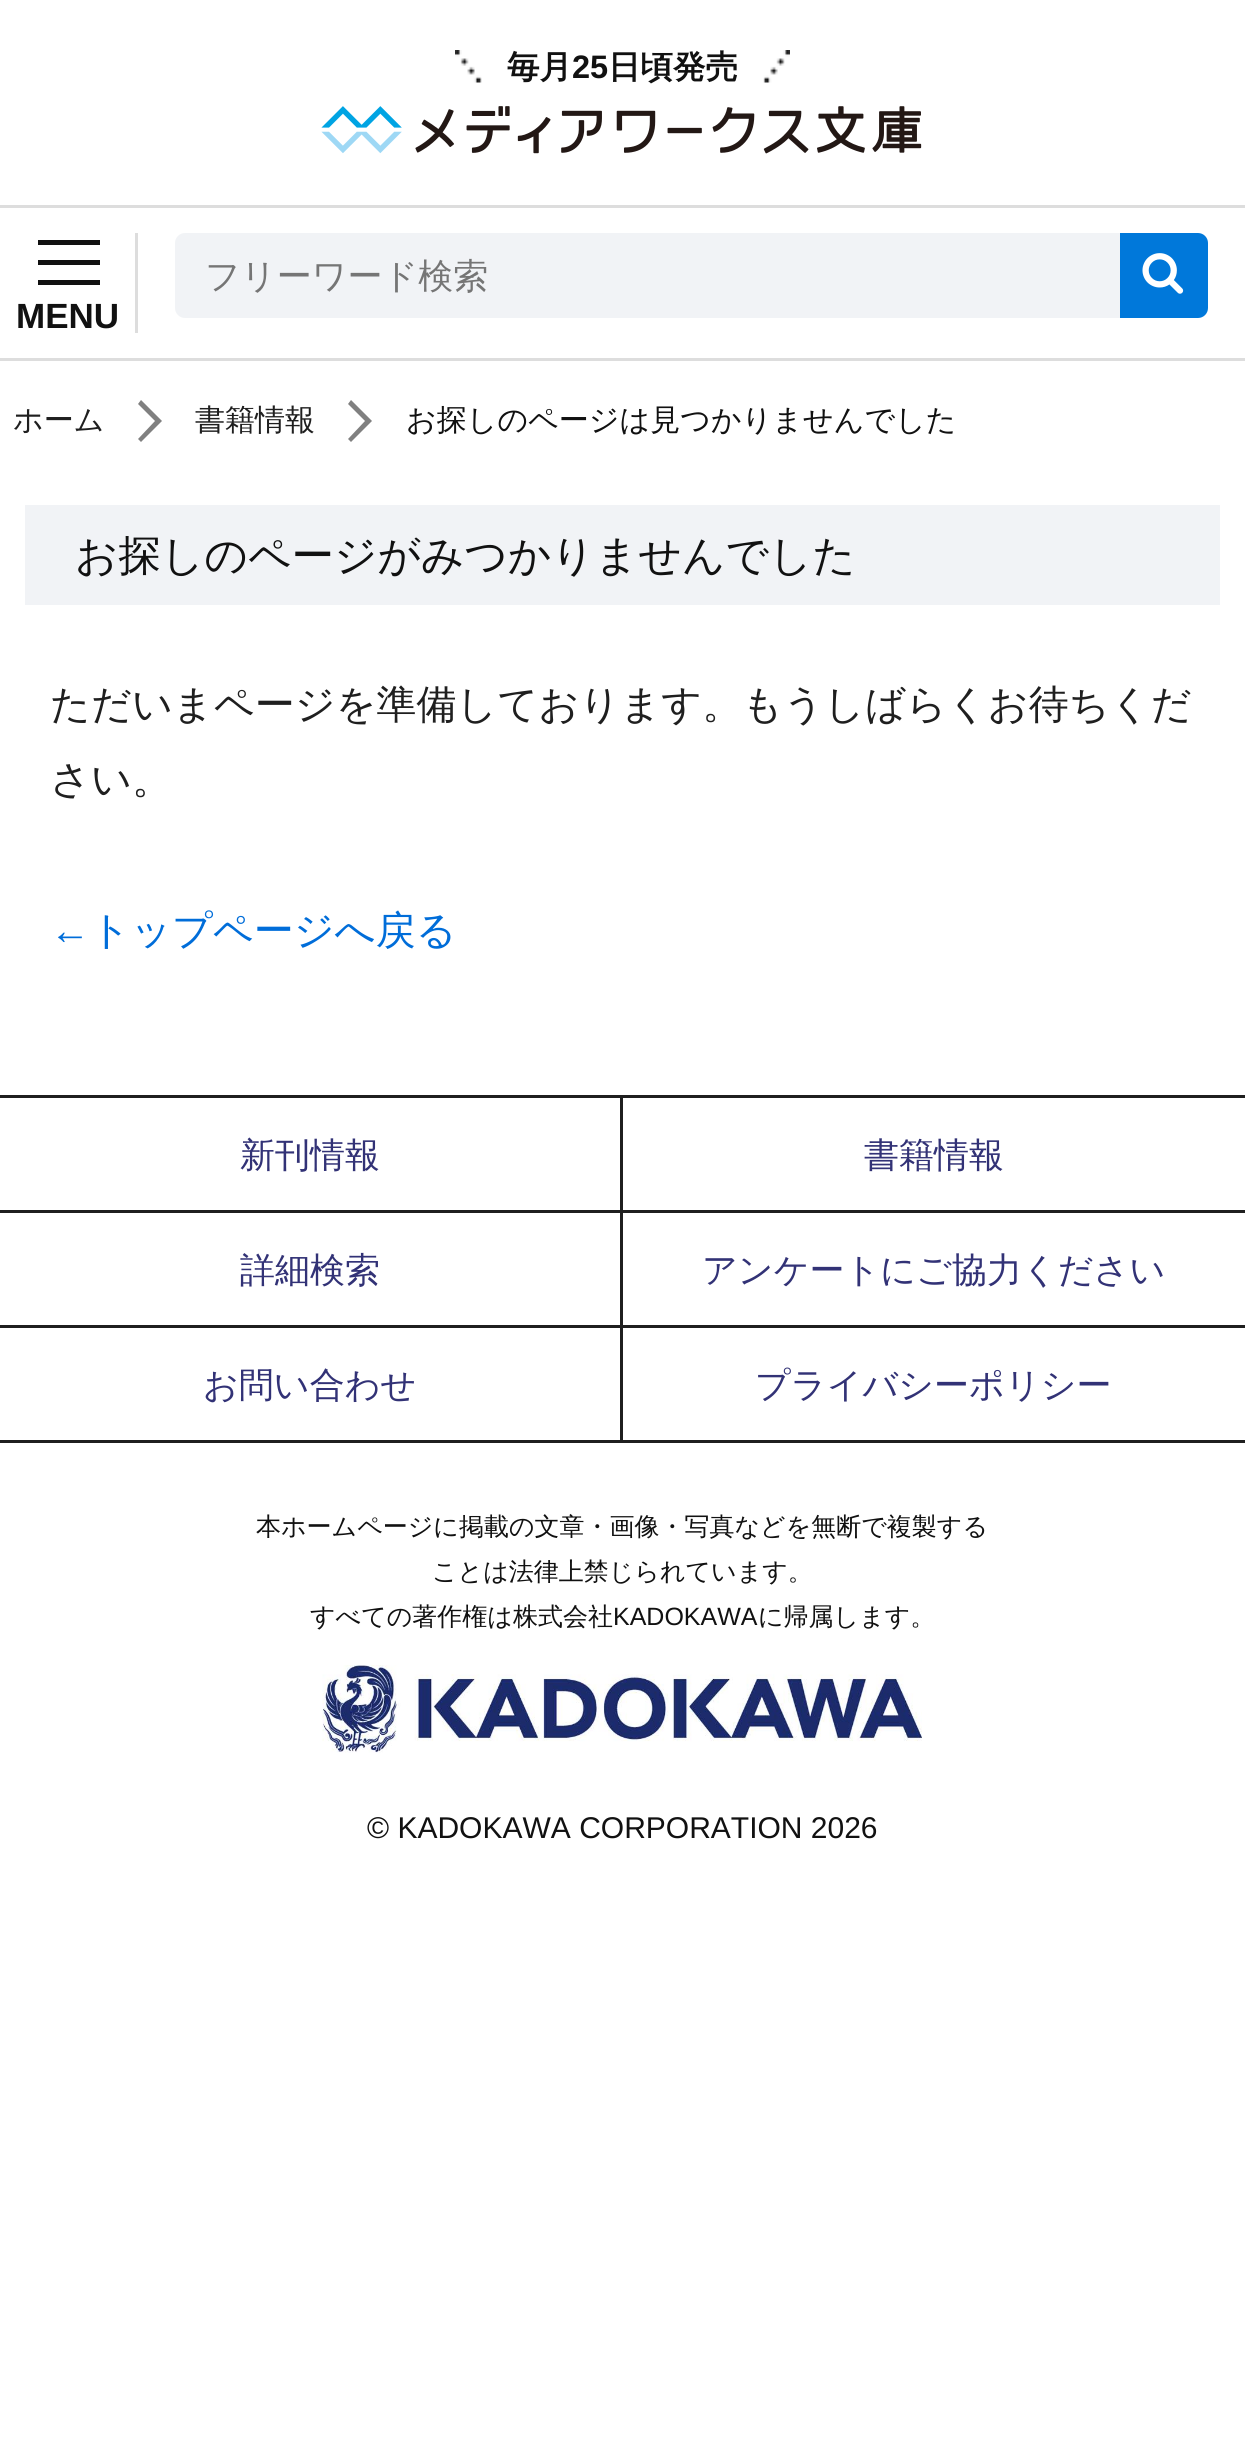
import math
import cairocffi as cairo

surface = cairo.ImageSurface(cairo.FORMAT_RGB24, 1245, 2442)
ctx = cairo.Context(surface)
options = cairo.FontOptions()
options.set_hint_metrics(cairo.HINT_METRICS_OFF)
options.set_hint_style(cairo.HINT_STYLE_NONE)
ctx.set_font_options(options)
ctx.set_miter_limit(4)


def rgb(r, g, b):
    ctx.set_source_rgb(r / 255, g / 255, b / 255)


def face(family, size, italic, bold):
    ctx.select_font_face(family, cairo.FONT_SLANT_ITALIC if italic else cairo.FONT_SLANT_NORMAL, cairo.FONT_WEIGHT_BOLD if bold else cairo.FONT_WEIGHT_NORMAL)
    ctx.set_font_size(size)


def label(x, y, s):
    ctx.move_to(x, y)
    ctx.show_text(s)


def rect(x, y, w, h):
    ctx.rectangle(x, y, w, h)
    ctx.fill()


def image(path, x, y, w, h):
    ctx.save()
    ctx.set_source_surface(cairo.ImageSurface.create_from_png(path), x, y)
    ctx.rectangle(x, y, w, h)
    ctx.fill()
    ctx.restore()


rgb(255, 255, 255)
ctx.paint()
rgb(221, 221, 221)
rect(0, 205, 1245, 3)
image('image0.png', 455, 50, 335, 33)
face('WenQuanYi Zen Hei', 32.5, 0, 1)
rgb(17, 17, 17)
label(507, 78, '毎月')
face('Liberation Sans', 32.5, 0, 1)
label(572, 78, '25')
face('WenQuanYi Zen Hei', 32.5, 0, 1)
label(608, 78, '日頃発売')
image('image1.png', 321, 106, 601, 48)
rgb(221, 221, 221)
rect(0, 358, 1245, 3)
rgb(241, 243, 246)
ctx.new_path()
ctx.move_to(185, 233)
ctx.line_to(1120, 233)
ctx.line_to(1120, 318)
ctx.line_to(185, 318)
ctx.curve_to(179.5, 318, 175, 313.5, 175, 308)
ctx.line_to(175, 243)
ctx.curve_to(175, 237.5, 179.5, 233, 185, 233)
ctx.close_path()
ctx.fill()
face('WenQuanYi Zen Hei Medium', 35, 0, 0)
rgb(117, 117, 117)
label(205, 288, 'フリーワード検索')
rgb(0, 120, 218)
ctx.new_path()
ctx.move_to(1120, 233)
ctx.line_to(1198, 233)
ctx.curve_to(1203.5, 233, 1208, 237.5, 1208, 243)
ctx.line_to(1208, 308)
ctx.curve_to(1208, 313.5, 1203.5, 318, 1198, 318)
ctx.line_to(1120, 318)
ctx.close_path()
ctx.fill()
image('image2.png', 1142, 253, 42, 41)
rgb(221, 221, 221)
rect(135, 233, 3, 100)
rgb(17, 17, 17)
rect(38, 240, 62, 5)
rect(38, 260, 62, 5)
rect(38, 280, 62, 5)
face('Liberation Sans', 35, 0, 1)
label(16, 328, 'MENU')
face('WenQuanYi Zen Hei Medium', 30, 0, 0)
rgb(31, 31, 31)
label(13, 430, 'ホーム')
rgb(128, 128, 128)
ctx.set_fill_rule(cairo.FILL_RULE_EVEN_ODD)
ctx.new_path()
ctx.move_to(138, 404)
ctx.line_to(141, 400)
ctx.line_to(162, 421)
ctx.line_to(141, 442)
ctx.line_to(138, 439)
ctx.line_to(155, 421)
ctx.close_path()
ctx.fill()
rgb(31, 31, 31)
label(195, 430, '書籍情報')
rgb(128, 128, 128)
ctx.new_path()
ctx.move_to(348, 404)
ctx.line_to(351, 400)
ctx.line_to(372, 421)
ctx.line_to(351, 442)
ctx.line_to(348, 439)
ctx.line_to(365, 421)
ctx.close_path()
ctx.fill()
rgb(17, 17, 17)
label(406, 430, 'お探しのページは見つかりませんでした')
rgb(241, 243, 246)
rect(25, 505, 1195, 100)
face('WenQuanYi Zen Hei Medium', 42.5, 0, 0)
rgb(17, 17, 17)
label(75, 570, 'お探しのページがみつかりませんでした')
face('WenQuanYi Zen Hei Medium', 40, 0, 0)
rgb(31, 31, 31)
label(50, 718, 'ただいまページを準備しております。もうしばらくお待ちくだ')
label(50, 793, 'さい。')
face('Liberation Sans', 40, 0, 0)
rgb(0, 109, 217)
label(50, 944, '←')
face('WenQuanYi Zen Hei Medium', 40, 0, 0)
label(90, 944, 'トップページへ戻る')
rgb(31, 31, 31)
rect(0, 1095, 1245, 3)
rect(620, 1098, 3, 345)
rect(0, 1210, 1245, 3)
face('WenQuanYi Zen Hei Medium', 35, 0, 0)
rgb(50, 50, 118)
label(240, 1167, '新刊情報')
label(864, 1167, '書籍情報')
rgb(31, 31, 31)
rect(0, 1325, 1245, 3)
rgb(50, 50, 118)
label(240, 1282, '詳細検索')
label(702, 1282, 'アンケートにご協力ください')
rgb(31, 31, 31)
rect(0, 1440, 1245, 3)
rgb(50, 50, 118)
label(203, 1397, 'お問い合わせ')
label(755, 1397, 'プライバシーポリシー')
face('WenQuanYi Zen Hei Medium', 25, 0, 0)
rgb(17, 17, 17)
label(256, 1535, '本ホームページに掲載の文章・画像・写真などを無断で複製する')
label(432, 1580, 'ことは法律上禁じられています。')
label(310, 1625, 'すべての著作権は株式会社')
face('Liberation Sans', 25, 0, 0)
label(613, 1625, 'KADOKAWA')
face('WenQuanYi Zen Hei Medium', 25, 0, 0)
label(758, 1625, 'に帰属します。')
image('image3.png', 322, 1665, 600, 88)
face('Liberation Sans', 30, 0, 0)
label(367, 1838, '© KADOKAWA CORPORATION 2026')
surface.write_to_png('render.png')
